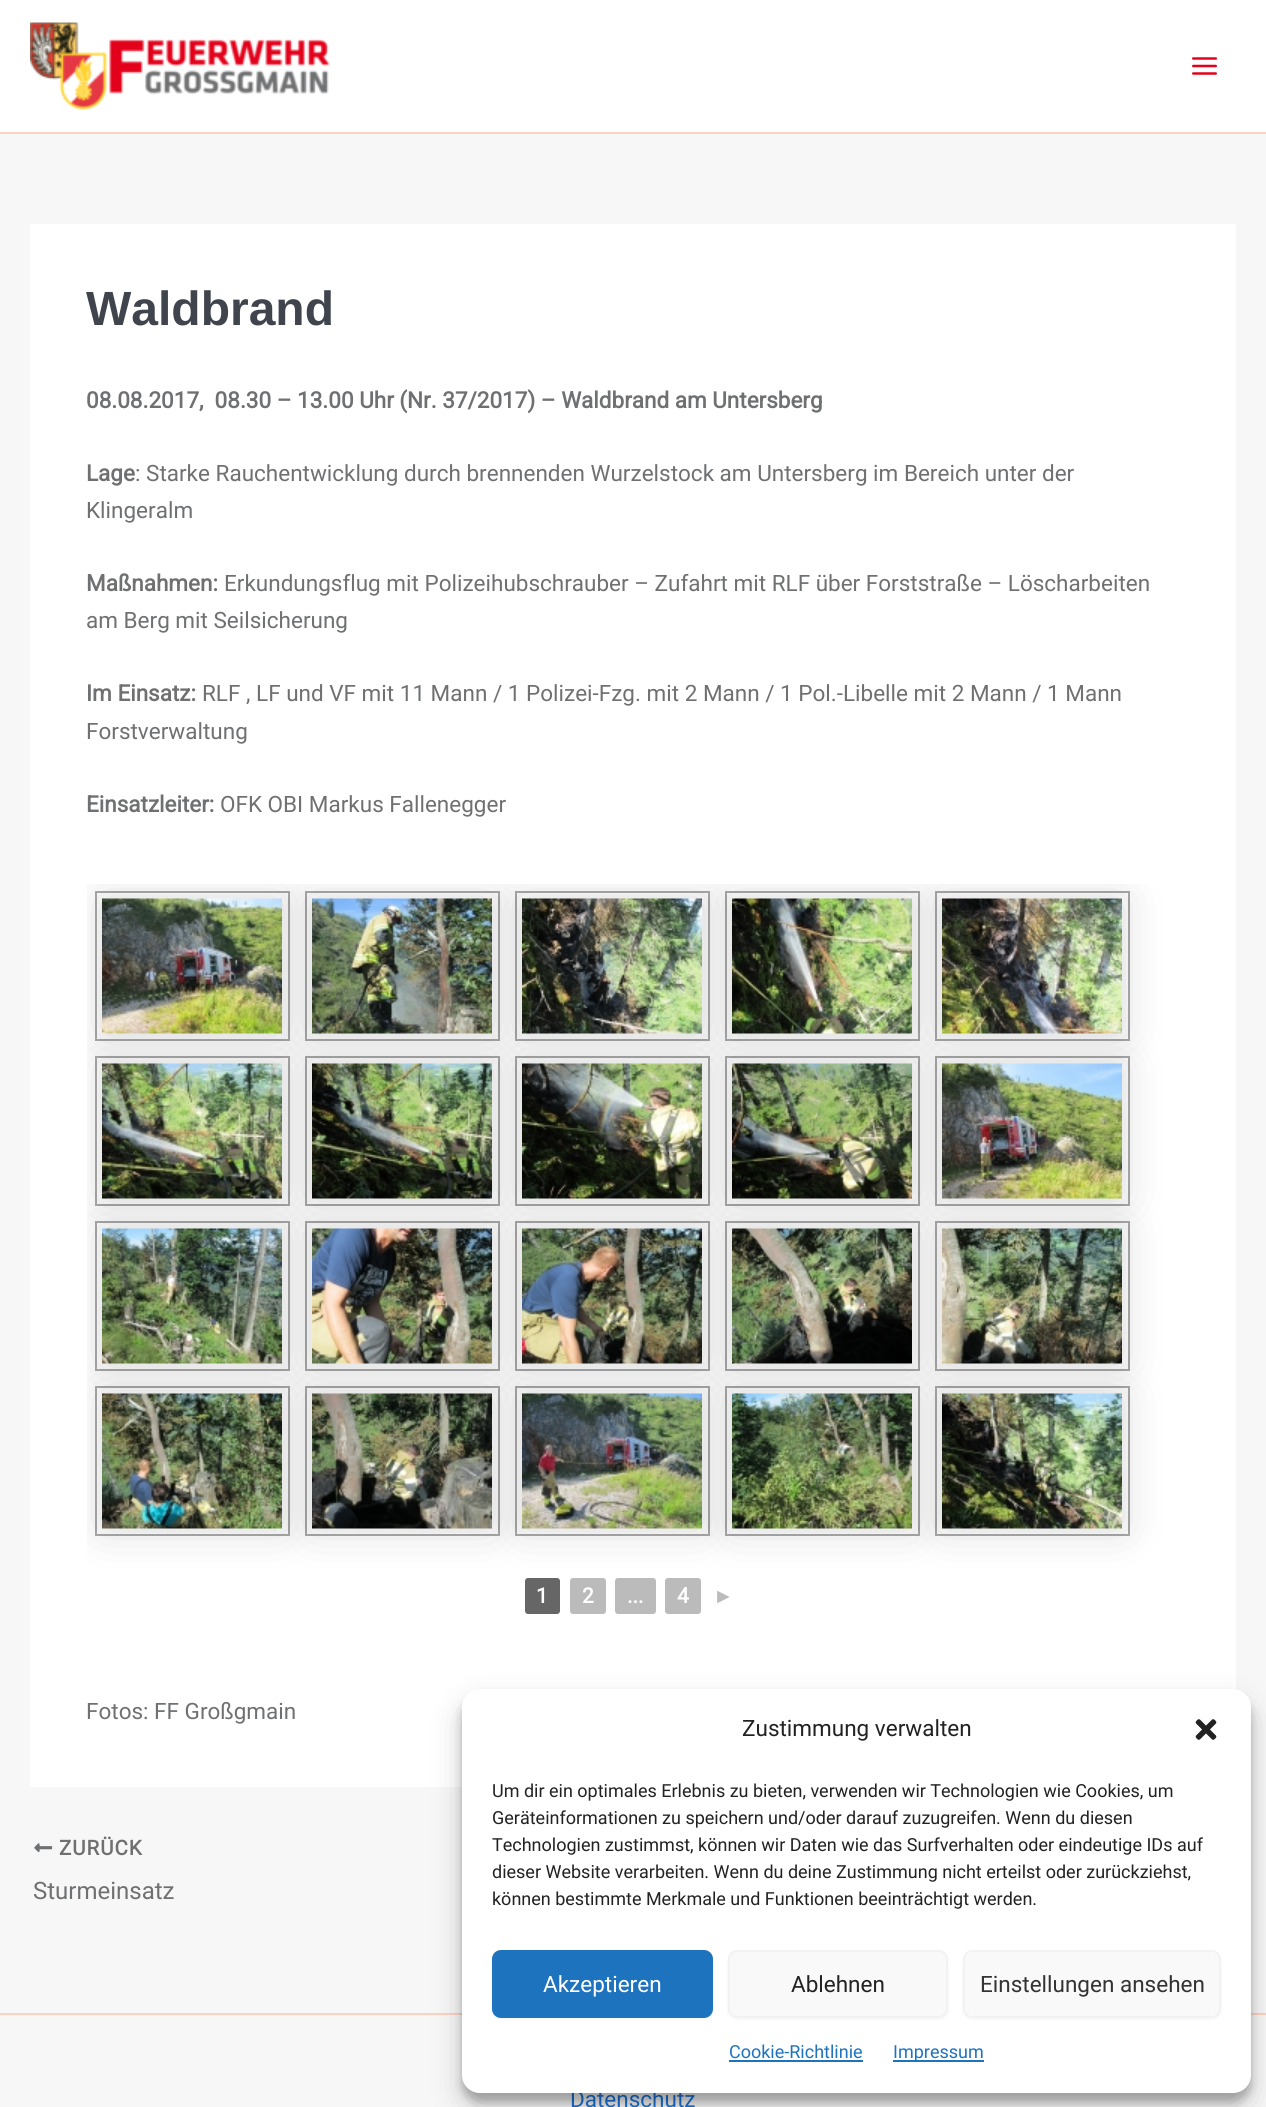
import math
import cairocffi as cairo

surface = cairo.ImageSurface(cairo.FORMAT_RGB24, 1266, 2107)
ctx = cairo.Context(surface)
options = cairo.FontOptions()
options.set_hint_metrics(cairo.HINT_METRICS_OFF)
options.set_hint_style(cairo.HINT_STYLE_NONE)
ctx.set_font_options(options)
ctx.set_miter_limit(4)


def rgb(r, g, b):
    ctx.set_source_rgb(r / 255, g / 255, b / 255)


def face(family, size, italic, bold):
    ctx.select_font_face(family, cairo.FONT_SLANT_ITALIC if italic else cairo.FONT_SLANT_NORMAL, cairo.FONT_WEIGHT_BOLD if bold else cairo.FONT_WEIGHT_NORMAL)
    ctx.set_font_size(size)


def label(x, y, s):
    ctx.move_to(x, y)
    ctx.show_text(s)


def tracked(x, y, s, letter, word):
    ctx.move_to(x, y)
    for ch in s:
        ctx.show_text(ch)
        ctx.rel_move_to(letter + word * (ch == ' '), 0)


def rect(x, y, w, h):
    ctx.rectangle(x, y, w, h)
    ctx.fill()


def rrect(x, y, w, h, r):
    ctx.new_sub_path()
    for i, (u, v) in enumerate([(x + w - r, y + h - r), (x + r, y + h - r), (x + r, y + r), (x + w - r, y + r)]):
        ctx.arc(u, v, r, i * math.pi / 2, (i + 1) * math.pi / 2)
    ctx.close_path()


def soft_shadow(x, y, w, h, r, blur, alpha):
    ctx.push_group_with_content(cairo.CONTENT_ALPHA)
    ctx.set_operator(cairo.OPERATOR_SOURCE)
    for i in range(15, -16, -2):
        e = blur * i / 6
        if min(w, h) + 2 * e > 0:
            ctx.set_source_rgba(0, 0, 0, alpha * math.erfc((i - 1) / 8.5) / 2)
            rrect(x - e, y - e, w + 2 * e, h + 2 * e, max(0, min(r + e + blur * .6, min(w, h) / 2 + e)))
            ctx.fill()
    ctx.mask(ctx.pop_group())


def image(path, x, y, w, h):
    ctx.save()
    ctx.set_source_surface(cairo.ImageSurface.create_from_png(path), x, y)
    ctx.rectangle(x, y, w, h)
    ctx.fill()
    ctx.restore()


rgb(247, 247, 247)
ctx.paint()
rgb(255, 255, 255)
rect(0, 0, 1266, 132)
rgb(255, 209, 191)
rect(0, 132, 1266, 2)
image('image0.png', 30, 22, 300, 88)
image('image1.png', 1192, 57, 25, 18)
rgb(255, 255, 255)
rect(30, 224, 1206, 1563)
face('Liberation Sans', 48, 0, 1)
rgb(64, 68, 77)
label(86, 325, 'Waldbrand')
face('Roboto', 22.5, 0, 1)
rgb(111, 112, 114)
label(86, 408, '08.08.2017,  08.30 – 13.00 Uhr (Nr. 37/2017) – Waldbrand am Untersberg')
label(86, 481, 'Lage')
face('Roboto', 22.5, 0, 0)
label(135, 481, ': Starke Rauchentwicklung durch brennenden Wurzelstock am Untersberg im Bereich unter der')
label(86, 518, 'Klingeralm')
face('Roboto', 22.5, 0, 1)
label(86, 591, 'Maßnahmen:')
face('Roboto', 22.5, 0, 0)
label(224, 591, 'Erkundungsflug mit Polizeihubschrauber – Zufahrt mit RLF über Forststraße – Löscharbeiten')
label(86, 628, 'am Berg mit Seilsicherung')
face('Roboto', 22.5, 0, 1)
label(86, 701, 'Im Einsatz:')
face('Roboto', 22.5, 0, 0)
label(202, 701, 'RLF , LF und VF mit 11 Mann / 1 Polizei-Fzg. mit 2 Mann / 1 Pol.-Libelle mit 2 Mann / 1 Mann')
label(86, 739, 'Forstverwaltung')
face('Roboto', 22.5, 0, 1)
label(86, 812, 'Einsatzleiter:')
face('Roboto', 22.5, 0, 0)
label(220, 812, 'OFK OBI Markus Fallenegger')
ctx.rectangle(96, 892, 193, 148)
rgb(169, 169, 169)
ctx.stroke()
ctx.rectangle(306, 892, 193, 148)
ctx.stroke()
ctx.rectangle(96, 1057, 193, 148)
ctx.stroke()
ctx.rectangle(306, 1057, 193, 148)
ctx.stroke()
ctx.save()
ctx.rectangle(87, 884, 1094, 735)
ctx.clip()
rgb(0, 0, 0)
soft_shadow(102, 899, 180, 135, 0, 22.5, 0.15)
ctx.restore()
image('image2.png', 102, 898, 180, 136)
ctx.rectangle(516, 892, 193, 148)
ctx.stroke()
ctx.rectangle(516, 1057, 193, 148)
ctx.stroke()
ctx.save()
ctx.rectangle(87, 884, 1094, 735)
ctx.clip()
rgb(0, 0, 0)
soft_shadow(312, 899, 180, 135, 0, 22.5, 0.15)
ctx.restore()
image('image3.png', 312, 898, 180, 136)
ctx.rectangle(726, 892, 193, 148)
ctx.stroke()
ctx.rectangle(726, 1057, 193, 148)
ctx.stroke()
ctx.save()
ctx.rectangle(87, 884, 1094, 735)
ctx.clip()
rgb(0, 0, 0)
soft_shadow(522, 899, 180, 135, 0, 22.5, 0.15)
ctx.restore()
image('image4.png', 522, 898, 180, 136)
ctx.rectangle(936, 892, 193, 148)
ctx.stroke()
ctx.rectangle(936, 1057, 193, 148)
ctx.stroke()
ctx.save()
ctx.rectangle(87, 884, 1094, 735)
ctx.clip()
rgb(0, 0, 0)
soft_shadow(732, 899, 180, 135, 0, 22.5, 0.15)
ctx.restore()
image('image5.png', 732, 898, 180, 136)
ctx.save()
ctx.rectangle(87, 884, 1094, 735)
ctx.clip()
rgb(0, 0, 0)
soft_shadow(942, 899, 180, 135, 0, 22.5, 0.15)
ctx.restore()
image('image6.png', 942, 898, 180, 136)
ctx.rectangle(96, 1222, 193, 148)
ctx.stroke()
ctx.rectangle(306, 1222, 193, 148)
ctx.stroke()
ctx.save()
ctx.rectangle(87, 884, 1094, 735)
ctx.clip()
rgb(0, 0, 0)
soft_shadow(102, 1064, 180, 135, 0, 22.5, 0.15)
ctx.restore()
image('image7.png', 102, 1063, 180, 136)
ctx.rectangle(516, 1222, 193, 148)
ctx.stroke()
rgb(0, 0, 0)
soft_shadow(312, 1064, 180, 135, 0, 22.5, 0.15)
image('image8.png', 312, 1063, 180, 136)
ctx.rectangle(726, 1222, 193, 148)
rgb(169, 169, 169)
ctx.stroke()
rgb(0, 0, 0)
soft_shadow(522, 1064, 180, 135, 0, 22.5, 0.15)
image('image9.png', 522, 1063, 180, 136)
ctx.rectangle(936, 1222, 193, 148)
rgb(169, 169, 169)
ctx.stroke()
rgb(0, 0, 0)
soft_shadow(732, 1064, 180, 135, 0, 22.5, 0.15)
image('image10.png', 732, 1063, 180, 136)
soft_shadow(942, 1064, 180, 135, 0, 22.5, 0.15)
image('image11.png', 942, 1063, 180, 136)
ctx.rectangle(96, 1387, 193, 148)
rgb(169, 169, 169)
ctx.stroke()
ctx.rectangle(306, 1387, 193, 148)
ctx.stroke()
ctx.save()
ctx.rectangle(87, 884, 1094, 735)
ctx.clip()
rgb(0, 0, 0)
soft_shadow(102, 1229, 180, 135, 0, 22.5, 0.15)
ctx.restore()
image('image12.png', 102, 1228, 180, 136)
ctx.rectangle(516, 1387, 193, 148)
ctx.stroke()
rgb(0, 0, 0)
soft_shadow(312, 1229, 180, 135, 0, 22.5, 0.15)
image('image13.png', 312, 1228, 180, 136)
ctx.rectangle(726, 1387, 193, 148)
rgb(169, 169, 169)
ctx.stroke()
rgb(0, 0, 0)
soft_shadow(522, 1229, 180, 135, 0, 22.5, 0.15)
image('image14.png', 522, 1228, 180, 136)
ctx.rectangle(936, 1387, 193, 148)
rgb(169, 169, 169)
ctx.stroke()
rgb(0, 0, 0)
soft_shadow(732, 1229, 180, 135, 0, 22.5, 0.15)
image('image15.png', 732, 1228, 180, 136)
soft_shadow(942, 1229, 180, 135, 0, 22.5, 0.15)
image('image16.png', 942, 1228, 180, 136)
ctx.save()
ctx.rectangle(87, 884, 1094, 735)
ctx.clip()
soft_shadow(102, 1394, 180, 135, 0, 22.5, 0.15)
ctx.restore()
image('image17.png', 102, 1393, 180, 136)
rgb(102, 102, 102)
rrect(525, 1578, 35, 36, 3)
ctx.fill()
rgb(0, 0, 0)
soft_shadow(312, 1394, 180, 135, 0, 22.5, 0.15)
image('image18.png', 312, 1393, 180, 136)
rgb(187, 187, 187)
rrect(570, 1578, 36, 36, 3)
ctx.fill()
rrect(615, 1578, 41, 36, 3)
ctx.fill()
rrect(665, 1578, 36, 36, 3)
ctx.fill()
rgb(0, 0, 0)
soft_shadow(522, 1394, 180, 135, 0, 22.5, 0.15)
image('image19.png', 522, 1393, 180, 136)
soft_shadow(732, 1394, 180, 135, 0, 22.5, 0.15)
image('image20.png', 732, 1393, 180, 136)
soft_shadow(942, 1394, 180, 135, 0, 22.5, 0.15)
image('image21.png', 942, 1393, 180, 136)
face('Roboto', 21, 0, 1)
rgb(255, 255, 255)
label(536, 1603, '1')
label(582, 1603, '2')
label(627, 1603, '...')
label(677, 1603, '4')
face('Liberation Sans', 21, 0, 1)
rgb(187, 187, 187)
label(713, 1603, '►')
face('Roboto', 22.5, 0, 0)
rgb(111, 112, 114)
label(86, 1719, 'Fotos: FF Großgmain')
image('image22.png', 34, 1843, 19, 9)
face('Roboto', 20.5, 0, 1)
tracked(59, 1855, 'ZURÜCK', 1, 0)
face('Roboto', 24, 0, 0)
label(33, 1899, 'Sturmeinsatz')
rgb(255, 209, 191)
rect(0, 2013, 1266, 2)
face('Roboto', 22.5, 0, 0)
rgb(24, 116, 222)
label(570, 2107, 'Datenschutz')
rgb(0, 0, 0)
soft_shadow(462, 1698, 789, 404, 18, 4.5, 0.23)
soft_shadow(462, 1704, 789, 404, 18, 15, 0.19)
rgb(255, 255, 255)
rrect(462, 1689, 789, 404, 18)
ctx.fill()
rgb(34, 34, 34)
label(742, 1736, 'Zustimmung verwalten')
image('image23.png', 1195, 1719, 22, 21)
face('Roboto', 18, 0, 0)
label(492, 1797, 'Um dir ein optimales Erlebnis zu bieten, verwenden wir Technologien wie Cookies, um')
label(492, 1824, 'Geräteinformationen zu speichern und/oder darauf zuzugreifen. Wenn du diesen')
label(492, 1851, 'Technologien zustimmst, können wir Daten wie das Surfverhalten oder eindeutige IDs auf')
label(492, 1878, 'dieser Website verarbeiten. Wenn du deine Zustimmung nicht erteilst oder zurückziehst,')
label(492, 1905, 'können bestimmte Merkmale und Funktionen beeinträchtigt werden.')
rgb(0, 0, 0)
soft_shadow(492, 1952, 221, 67, 9, 1.5, 0.05)
rgb(30, 115, 190)
rrect(493, 1951, 219, 66, 8)
ctx.fill_preserve()
ctx.stroke()
face('Roboto', 22.5, 0, 0)
rgb(255, 255, 255)
label(543, 1992, 'Akzeptieren')
rgb(0, 0, 0)
soft_shadow(728, 1952, 220, 67, 9, 1.5, 0.05)
rgb(249, 249, 249)
rrect(729, 1951, 218, 66, 8)
ctx.fill_preserve()
rgb(242, 242, 242)
ctx.stroke()
rgb(34, 34, 34)
label(791, 1992, 'Ablehnen')
rgb(0, 0, 0)
soft_shadow(963, 1952, 258, 67, 9, 1.5, 0.05)
rgb(249, 249, 249)
rrect(964, 1951, 256, 66, 8)
ctx.fill_preserve()
rgb(242, 242, 242)
ctx.stroke()
rgb(51, 51, 51)
label(980, 1992, 'Einstellungen ansehen')
face('Roboto', 18, 0, 0)
rgb(30, 115, 190)
label(729, 2058, 'Cookie-Richtlinie')
rect(729, 2060, 134, 2)
rect(893, 2060, 91, 2)
label(893, 2058, 'Impressum')
surface.write_to_png('render.png')
